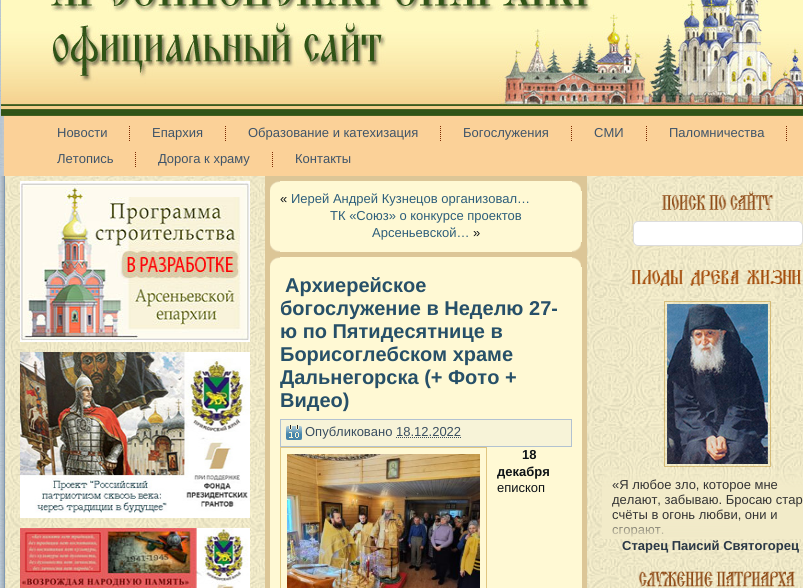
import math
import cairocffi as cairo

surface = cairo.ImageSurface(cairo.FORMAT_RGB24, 803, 588)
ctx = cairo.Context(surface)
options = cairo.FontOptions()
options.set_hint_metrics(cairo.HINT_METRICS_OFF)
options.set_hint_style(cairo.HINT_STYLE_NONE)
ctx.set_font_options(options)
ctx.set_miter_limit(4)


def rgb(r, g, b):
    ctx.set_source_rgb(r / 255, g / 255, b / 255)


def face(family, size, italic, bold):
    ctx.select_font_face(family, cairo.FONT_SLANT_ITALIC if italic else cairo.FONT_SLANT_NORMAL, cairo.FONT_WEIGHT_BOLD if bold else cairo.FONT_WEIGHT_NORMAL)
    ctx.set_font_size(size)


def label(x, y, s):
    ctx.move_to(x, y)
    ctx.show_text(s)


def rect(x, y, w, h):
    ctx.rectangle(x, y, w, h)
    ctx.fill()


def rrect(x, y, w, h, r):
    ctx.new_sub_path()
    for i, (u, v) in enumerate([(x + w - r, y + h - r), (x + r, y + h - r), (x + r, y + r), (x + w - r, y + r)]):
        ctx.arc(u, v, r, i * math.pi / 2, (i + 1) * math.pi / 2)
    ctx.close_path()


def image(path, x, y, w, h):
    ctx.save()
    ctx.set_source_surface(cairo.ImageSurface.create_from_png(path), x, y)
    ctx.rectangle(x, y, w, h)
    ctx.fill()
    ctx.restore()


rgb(255, 255, 255)
ctx.paint()
image('image0.png', 0, 0, 4, 588)
image('image1.png', 1, 0, 802, 116)
image('image2.png', 2, 116, 801, 60)
face('Liberation Sans', 13, 0, 0)
rgb(63, 84, 105)
label(57, 137, 'Новости')
image('image3.png', 129, 126, 1, 15)
label(152, 137, 'Епархия')
image('image3.png', 225, 126, 1, 15)
label(248, 137, 'Образование и катехизация')
image('image3.png', 440, 126, 1, 15)
label(463, 137, 'Богослужения')
image('image3.png', 571, 126, 1, 15)
label(594, 137, 'СМИ')
image('image3.png', 646, 126, 1, 15)
label(669, 137, 'Паломничества')
image('image3.png', 786, 126, 1, 15)
label(57, 163, 'Летопись')
image('image3.png', 135, 152, 1, 15)
label(158, 163, 'Дорога к храму')
image('image3.png', 272, 152, 1, 15)
label(295, 163, 'Контакты')
image('image4.png', 1, 176, 4, 13)
image('image5.png', 1, 189, 4, 399)
rgb(220, 198, 151)
rect(265, 176, 322, 412)
image('image6.png', 5, 176, 260, 412)
image('image7.png', 20, 181, 230, 161)
image('image8.png', 20, 352, 230, 166)
image('image9.png', 20, 528, 230, 60)
image('image10.png', 270, 181, 10, 10)
rgb(255, 249, 212)
rect(280, 181, 292, 10)
image('image11.png', 572, 181, 9, 10)
rect(270, 191, 10, 51)
rect(280, 191, 302, 51)
rgb(13, 18, 22)
label(280, 203, '«')
rgb(45, 94, 123)
label(291, 203, 'Иерей Андрей Кузнецов организовал…')
label(330, 220, 'ТК «Союз» о конкурсе проектов')
label(372, 237, 'Арсеньевской…')
rgb(13, 18, 22)
label(473, 237, '»')
image('image12.png', 270, 242, 10, 10)
rgb(255, 249, 212)
rect(280, 242, 292, 10)
image('image13.png', 572, 242, 9, 10)
image('image10.png', 270, 257, 10, 10)
rect(280, 257, 292, 10)
image('image11.png', 572, 257, 9, 10)
rect(270, 267, 10, 321)
rect(280, 267, 302, 321)
face('Liberation Sans', 20, 0, 1)
rgb(39, 80, 104)
label(285, 292, 'Архиерейское')
label(280, 315, 'богослужение в Неделю 27-')
label(280, 338, 'ю по Пятидесятнице в')
label(280, 361, 'Борисоглебском храме')
label(280, 384, 'Дальнегорска (+ Фото +')
label(280, 407, 'Видео)')
rgb(247, 243, 216)
ctx.rectangle(280.5, 419.5, 291, 27)
ctx.fill_preserve()
rgb(178, 194, 209)
ctx.set_line_width(1)
ctx.stroke()
image('image14.png', 286, 425, 16, 15)
face('Liberation Sans', 13, 0, 0)
rgb(57, 77, 96)
label(305, 436, 'Опубликовано 18.12.2022')
ctx.new_path()
ctx.move_to(396, 437.5)
ctx.line_to(461, 437.5)
ctx.set_dash([1, 1])
ctx.stroke()
ctx.rectangle(280.5, 447.5, 206, 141)
rgb(224, 198, 129)
ctx.set_dash([])
ctx.stroke()
image('image15.png', 287, 454, 193, 134)
face('Liberation Sans', 13, 0, 1)
rgb(13, 18, 22)
label(522, 459, '18')
label(497, 476, 'декабря')
face('Liberation Sans', 13, 0, 0)
label(497, 492, 'епископ')
image('image16.png', 587, 176, 216, 412)
image('image17.png', 661, 191, 113, 19)
rgb(255, 255, 255)
rrect(633.5, 221.5, 169, 24, 4.5)
ctx.fill_preserve()
rgb(221, 221, 221)
ctx.stroke()
image('image18.png', 631, 270, 170, 16)
ctx.rectangle(664.5, 301.5, 106, 165)
ctx.set_source_rgba(0.714, 0.51, 0.071, 0.43)
ctx.stroke()
image('image19.png', 667, 304, 101, 160)
rgb(51, 51, 51)
label(612, 489, '«Я любое зло, которое мне')
label(612, 504, 'делают, забываю. Бросаю стар')
label(612, 519, 'счёты в огонь любви, они и')
label(612, 534, 'сгорают.')
gradient = cairo.LinearGradient(727, 519, 727, 539)
gradient.add_color_stop_rgba(0, 0.941, 0.914, 0.784, 0)
gradient.add_color_stop_rgba(1, 0.941, 0.914, 0.784, 1)
ctx.set_source(gradient)
rect(612, 519, 128, 18)
face('Liberation Sans', 13, 0, 1)
rgb(42, 56, 70)
label(622, 550, 'Старец Паисий Святогорец')
image('image20.png', 638, 571, 158, 16)
surface.write_to_png('render.png')
